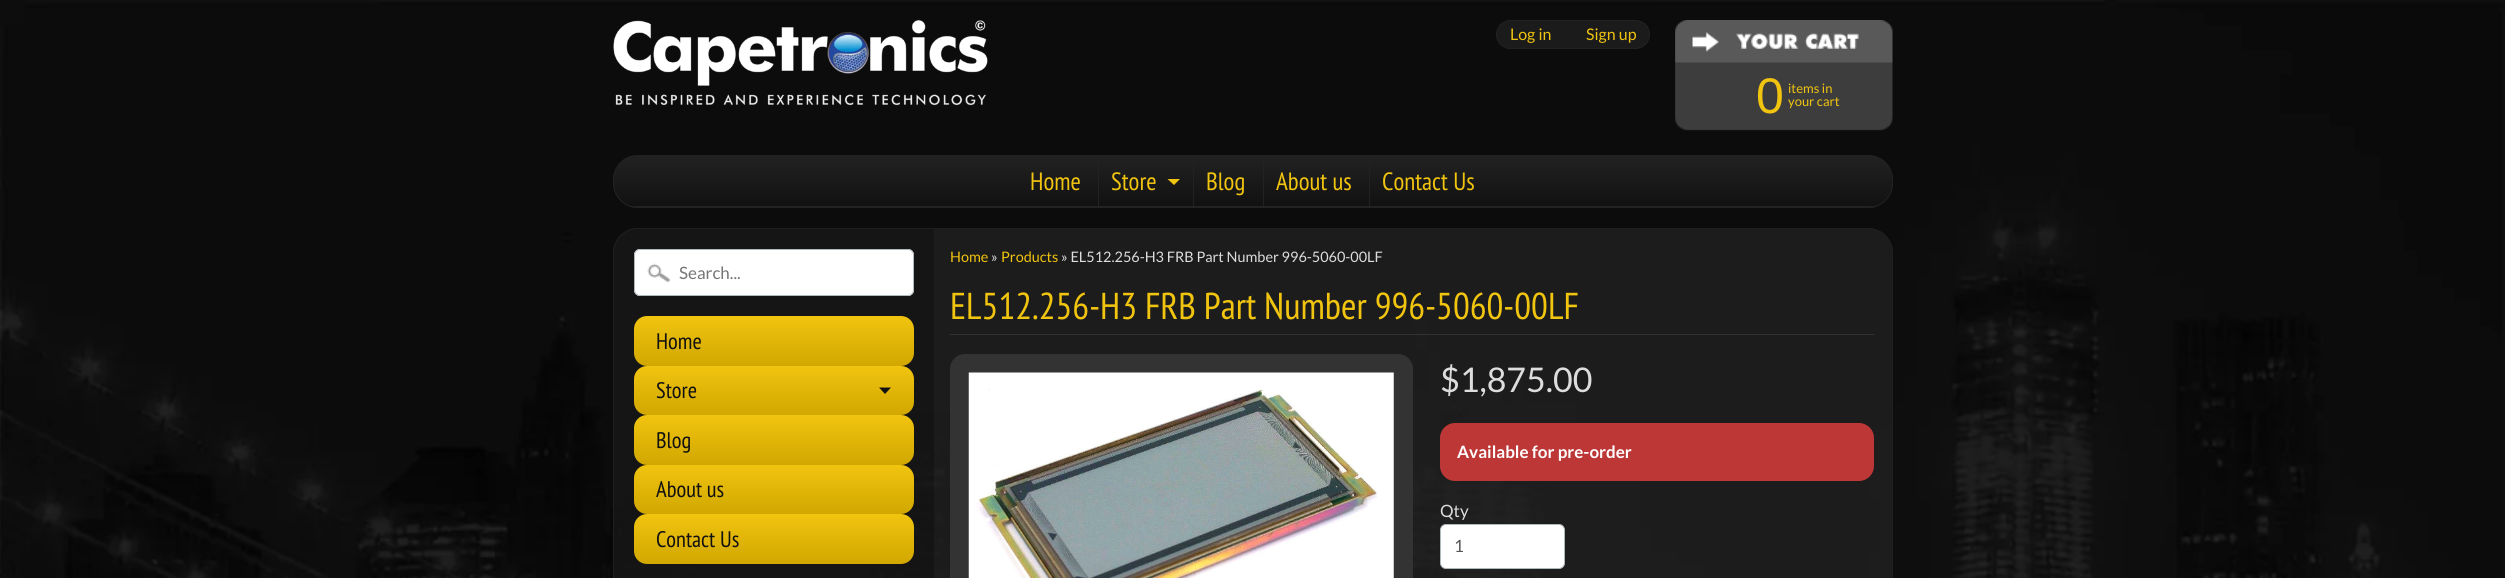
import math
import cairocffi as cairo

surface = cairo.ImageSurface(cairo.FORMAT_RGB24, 2505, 578)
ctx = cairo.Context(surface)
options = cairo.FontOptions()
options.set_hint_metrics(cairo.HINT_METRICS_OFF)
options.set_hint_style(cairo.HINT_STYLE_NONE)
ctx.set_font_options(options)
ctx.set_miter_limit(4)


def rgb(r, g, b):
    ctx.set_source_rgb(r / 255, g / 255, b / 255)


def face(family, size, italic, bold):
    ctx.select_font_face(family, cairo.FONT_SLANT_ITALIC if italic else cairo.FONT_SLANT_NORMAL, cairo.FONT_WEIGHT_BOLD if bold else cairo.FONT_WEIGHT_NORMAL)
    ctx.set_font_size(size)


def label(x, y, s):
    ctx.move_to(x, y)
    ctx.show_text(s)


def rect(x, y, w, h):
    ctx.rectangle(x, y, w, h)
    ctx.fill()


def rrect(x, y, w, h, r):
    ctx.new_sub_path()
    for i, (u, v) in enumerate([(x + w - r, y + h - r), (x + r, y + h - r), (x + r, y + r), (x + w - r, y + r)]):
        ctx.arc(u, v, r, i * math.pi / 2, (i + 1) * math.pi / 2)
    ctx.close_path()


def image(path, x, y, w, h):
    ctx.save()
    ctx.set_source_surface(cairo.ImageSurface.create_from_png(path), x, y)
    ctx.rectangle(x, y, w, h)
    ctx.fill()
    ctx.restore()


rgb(255, 255, 255)
ctx.paint()
image('image0.png', 0, 0, 2505, 578)
image('image1.png', 613, 20, 375, 86)
rgb(27, 27, 27)
rrect(1496.5, 20.5, 153, 28, 14)
ctx.fill_preserve()
rgb(34, 34, 34)
ctx.set_line_width(1)
ctx.stroke()
face('Lato', 16, 0, 0)
rgb(241, 196, 15)
label(1510, 40, 'Log in')
label(1586, 40, 'Sign up')
image('image2.png', 1675, 20, 218, 111)
face('Liberation Sans', 50, 0, 0)
label(1756, 113, '0')
face('Lato', 13, 0, 0)
label(1788, 93, 'items in')
label(1788, 106, 'your cart')
ctx.save()
rrect(613, 155, 1280, 53, 25)
ctx.clip()
gradient = cairo.LinearGradient(1253, 156, 1253, 206)
gradient.add_color_stop_rgba(0, 0.133, 0.133, 0.133, 1)
gradient.add_color_stop_rgba(1, 0.067, 0.067, 0.067, 1)
ctx.set_source(gradient)
rect(613, 156, 1280, 50)
gradient = cairo.LinearGradient(1253, 206, 1253, 256)
gradient.add_color_stop_rgba(0, 0.133, 0.133, 0.133, 1)
gradient.add_color_stop_rgba(1, 0.067, 0.067, 0.067, 1)
ctx.set_source(gradient)
rect(628, 206, 1250, 2)
ctx.restore()
rrect(613.5, 155.5, 1279, 52, 24.5)
rgb(34, 34, 34)
ctx.stroke()
face('PT Sans Narrow', 25, 0, 0)
rgb(241, 196, 15)
label(1030, 190, 'Home')
rgb(34, 34, 34)
rect(1098, 156, 1, 50)
rgb(241, 196, 15)
label(1111, 190, 'Store')
ctx.new_path()
ctx.move_to(1167.5, 179)
ctx.line_to(1180, 179)
ctx.line_to(1174, 185)
ctx.close_path()
ctx.fill()
rgb(34, 34, 34)
rect(1193, 156, 1, 50)
rgb(241, 196, 15)
label(1206, 190, 'Blog')
rgb(34, 34, 34)
rect(1263, 156, 1, 50)
rgb(241, 196, 15)
label(1276, 190, 'About us')
rgb(34, 34, 34)
rect(1369, 156, 1, 50)
rgb(241, 196, 15)
label(1382, 190, 'Contact Us')
ctx.set_source_rgba(0.133, 0.133, 0.133, 0.75)
rrect(613, 228, 1280, 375, 25)
ctx.fill()
rrect(613.5, 228.5, 1279, 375, 24.5)
ctx.set_source_rgba(0.133, 0.133, 0.133, 0.7)
ctx.stroke()
ctx.set_source_rgba(0, 0, 0, 0.25)
ctx.new_path()
ctx.move_to(638, 229)
ctx.line_to(934, 229)
ctx.line_to(934, 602)
ctx.line_to(614, 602)
ctx.line_to(614, 253)
ctx.curve_to(614, 239.5, 624.5, 229, 638, 229)
ctx.close_path()
ctx.fill()
rgb(255, 255, 255)
rrect(634, 249, 280, 47, 6)
ctx.fill()
image('image3.png', 647, 263, 23, 20)
rrect(634.5, 249.5, 279, 46, 5.5)
rgb(178, 185, 189)
ctx.stroke()
face('Lato', 17, 0, 0)
rgb(117, 117, 117)
label(679, 279, 'Search...')
gradient = cairo.LinearGradient(774, 316, 774, 366)
gradient.add_color_stop_rgba(0, 0.945, 0.769, 0.059, 1)
gradient.add_color_stop_rgba(1, 0.82, 0.655, 0.004, 1)
ctx.set_source(gradient)
rrect(634, 316, 280, 50, 13)
ctx.fill()
face('PT Sans Narrow', 22.5, 0, 0)
rgb(17, 17, 17)
label(656, 349, 'Home')
gradient = cairo.LinearGradient(774, 366, 774, 415)
gradient.add_color_stop_rgba(0, 0.945, 0.769, 0.059, 1)
gradient.add_color_stop_rgba(1, 0.82, 0.655, 0.004, 1)
ctx.set_source(gradient)
rrect(634, 366, 280, 49, 13)
ctx.fill()
rgb(17, 17, 17)
label(656, 398, 'Store')
ctx.new_path()
ctx.move_to(879, 387.5)
ctx.line_to(891, 387.5)
ctx.line_to(885, 394)
ctx.close_path()
ctx.fill()
gradient = cairo.LinearGradient(774, 415, 774, 465)
gradient.add_color_stop_rgba(0, 0.945, 0.769, 0.059, 1)
gradient.add_color_stop_rgba(1, 0.82, 0.655, 0.004, 1)
ctx.set_source(gradient)
rrect(634, 415, 280, 50, 13)
ctx.fill()
rgb(17, 17, 17)
label(656, 448, 'Blog')
gradient = cairo.LinearGradient(774, 465, 774, 514)
gradient.add_color_stop_rgba(0, 0.945, 0.769, 0.059, 1)
gradient.add_color_stop_rgba(1, 0.82, 0.655, 0.004, 1)
ctx.set_source(gradient)
rrect(634, 465, 280, 49, 13)
ctx.fill()
rgb(17, 17, 17)
label(656, 497, 'About us')
gradient = cairo.LinearGradient(774, 514, 774, 564)
gradient.add_color_stop_rgba(0, 0.945, 0.769, 0.059, 1)
gradient.add_color_stop_rgba(1, 0.82, 0.655, 0.004, 1)
ctx.set_source(gradient)
rrect(634, 514, 280, 50, 13)
ctx.fill()
rgb(17, 17, 17)
label(656, 547, 'Contact Us')
face('Lato', 14.45, 0, 0)
rgb(241, 196, 15)
label(950, 262, 'Home')
rgb(221, 221, 221)
label(991, 262, '»')
rgb(241, 196, 15)
label(1001, 262, 'Products')
rgb(221, 221, 221)
label(1061, 262, '» EL512.256-H3 FRB Part Number 996-5060-00LF')
rgb(51, 51, 51)
rect(950, 334, 924, 1)
face('PT Sans Narrow', 37.4, 0, 0)
rgb(241, 196, 15)
label(950, 319, 'EL512.256-H3 FRB Part Number 996-5060-00LF')
rgb(51, 51, 51)
rrect(950.5, 354.5, 462, 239, 14.5)
ctx.fill_preserve()
ctx.stroke()
image('image4.png', 968, 372, 426, 206)
face('Lato', 34, 0, 0)
rgb(221, 221, 221)
label(1440, 392, '$1,875.00')
rgb(189, 55, 55)
rrect(1440, 423, 434, 58, 15)
ctx.fill()
face('Lato', 17, 0, 1)
rgb(255, 255, 255)
label(1457, 458, 'Available for pre-order')
face('Lato', 17, 0, 0)
rgb(221, 221, 221)
label(1440, 517, 'Qty')
rgb(255, 255, 255)
rrect(1440.5, 524.5, 124, 44, 5.5)
ctx.fill_preserve()
rgb(178, 185, 189)
ctx.stroke()
rgb(85, 85, 85)
label(1454, 552, '1')
surface.write_to_png('render.png')
